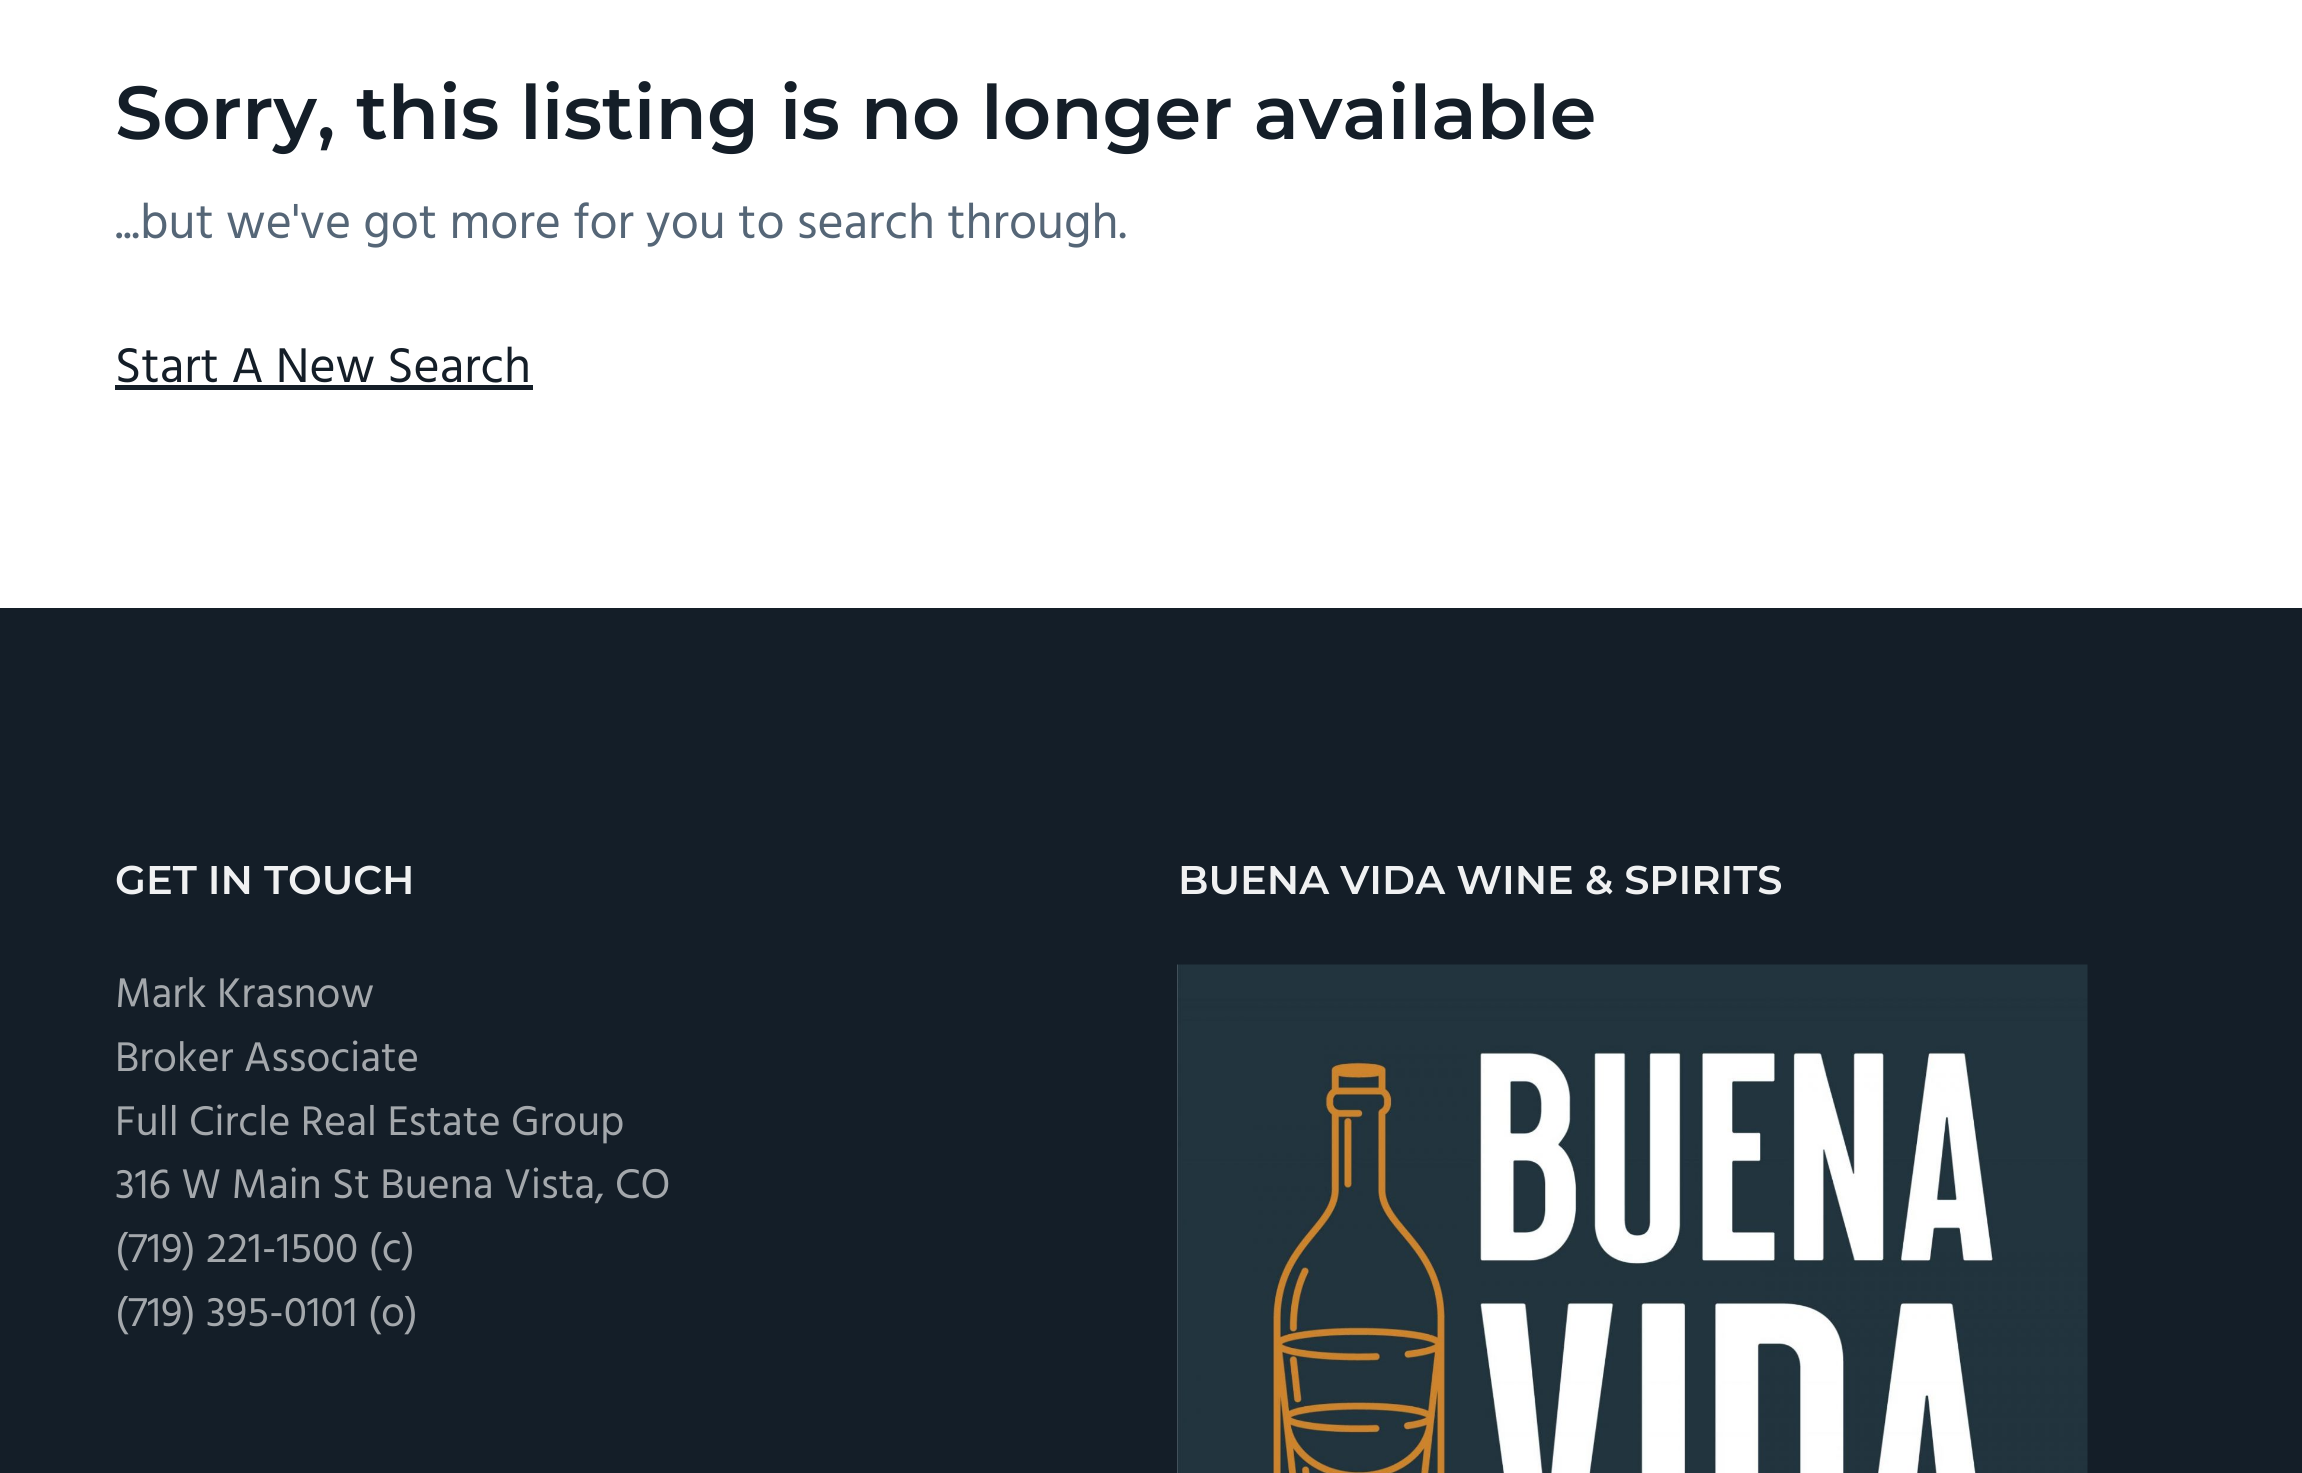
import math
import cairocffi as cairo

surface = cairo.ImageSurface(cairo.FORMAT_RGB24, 2302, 1473)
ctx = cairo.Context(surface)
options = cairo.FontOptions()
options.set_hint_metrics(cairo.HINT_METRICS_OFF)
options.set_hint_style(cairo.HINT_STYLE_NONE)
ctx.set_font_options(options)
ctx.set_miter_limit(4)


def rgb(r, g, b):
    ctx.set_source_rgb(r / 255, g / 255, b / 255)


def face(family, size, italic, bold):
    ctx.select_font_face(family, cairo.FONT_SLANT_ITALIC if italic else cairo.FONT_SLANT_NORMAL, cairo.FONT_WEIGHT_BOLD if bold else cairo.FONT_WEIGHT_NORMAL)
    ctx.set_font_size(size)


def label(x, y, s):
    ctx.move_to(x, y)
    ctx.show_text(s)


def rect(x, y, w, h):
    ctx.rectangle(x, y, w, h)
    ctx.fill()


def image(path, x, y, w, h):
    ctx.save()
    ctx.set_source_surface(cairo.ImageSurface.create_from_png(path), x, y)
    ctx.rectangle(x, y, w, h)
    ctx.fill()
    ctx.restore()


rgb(255, 255, 255)
ctx.paint()
face('Montserrat Thin', 75, 0, 0)
rgb(20, 30, 40)
label(115, 139, 'Sorry, this listing is no longer available')
face('Hind', 50, 0, 0)
rgb(85, 102, 119)
label(115, 238, '...but we\'ve got more for you to search through.')
rgb(20, 30, 40)
label(115, 382, 'Start A New Search')
rect(115, 385, 418, 5)
rect(0, 608, 2302, 865)
face('Montserrat Thin', 40, 0, 0)
rgb(240, 241, 242)
label(115, 894, 'GET IN TOUCH')
face('Hind', 42.5, 0, 0)
rgb(164, 168, 172)
label(115, 1007, 'Mark Krasnow')
label(115, 1071, 'Broker Associate')
label(115, 1135, 'Full Circle Real Estate Group')
label(115, 1198, '316 W Main St Buena Vista, CO')
label(115, 1262, '(719) 221-1500 (c)')
label(115, 1326, '(719) 395-0101 (o)')
face('Montserrat Thin', 40, 0, 0)
rgb(240, 241, 242)
label(1178, 894, 'BUENA VIDA WINE & SPIRITS')
image('image0.png', 1177, 964, 911, 509)
surface.write_to_png('render.png')
